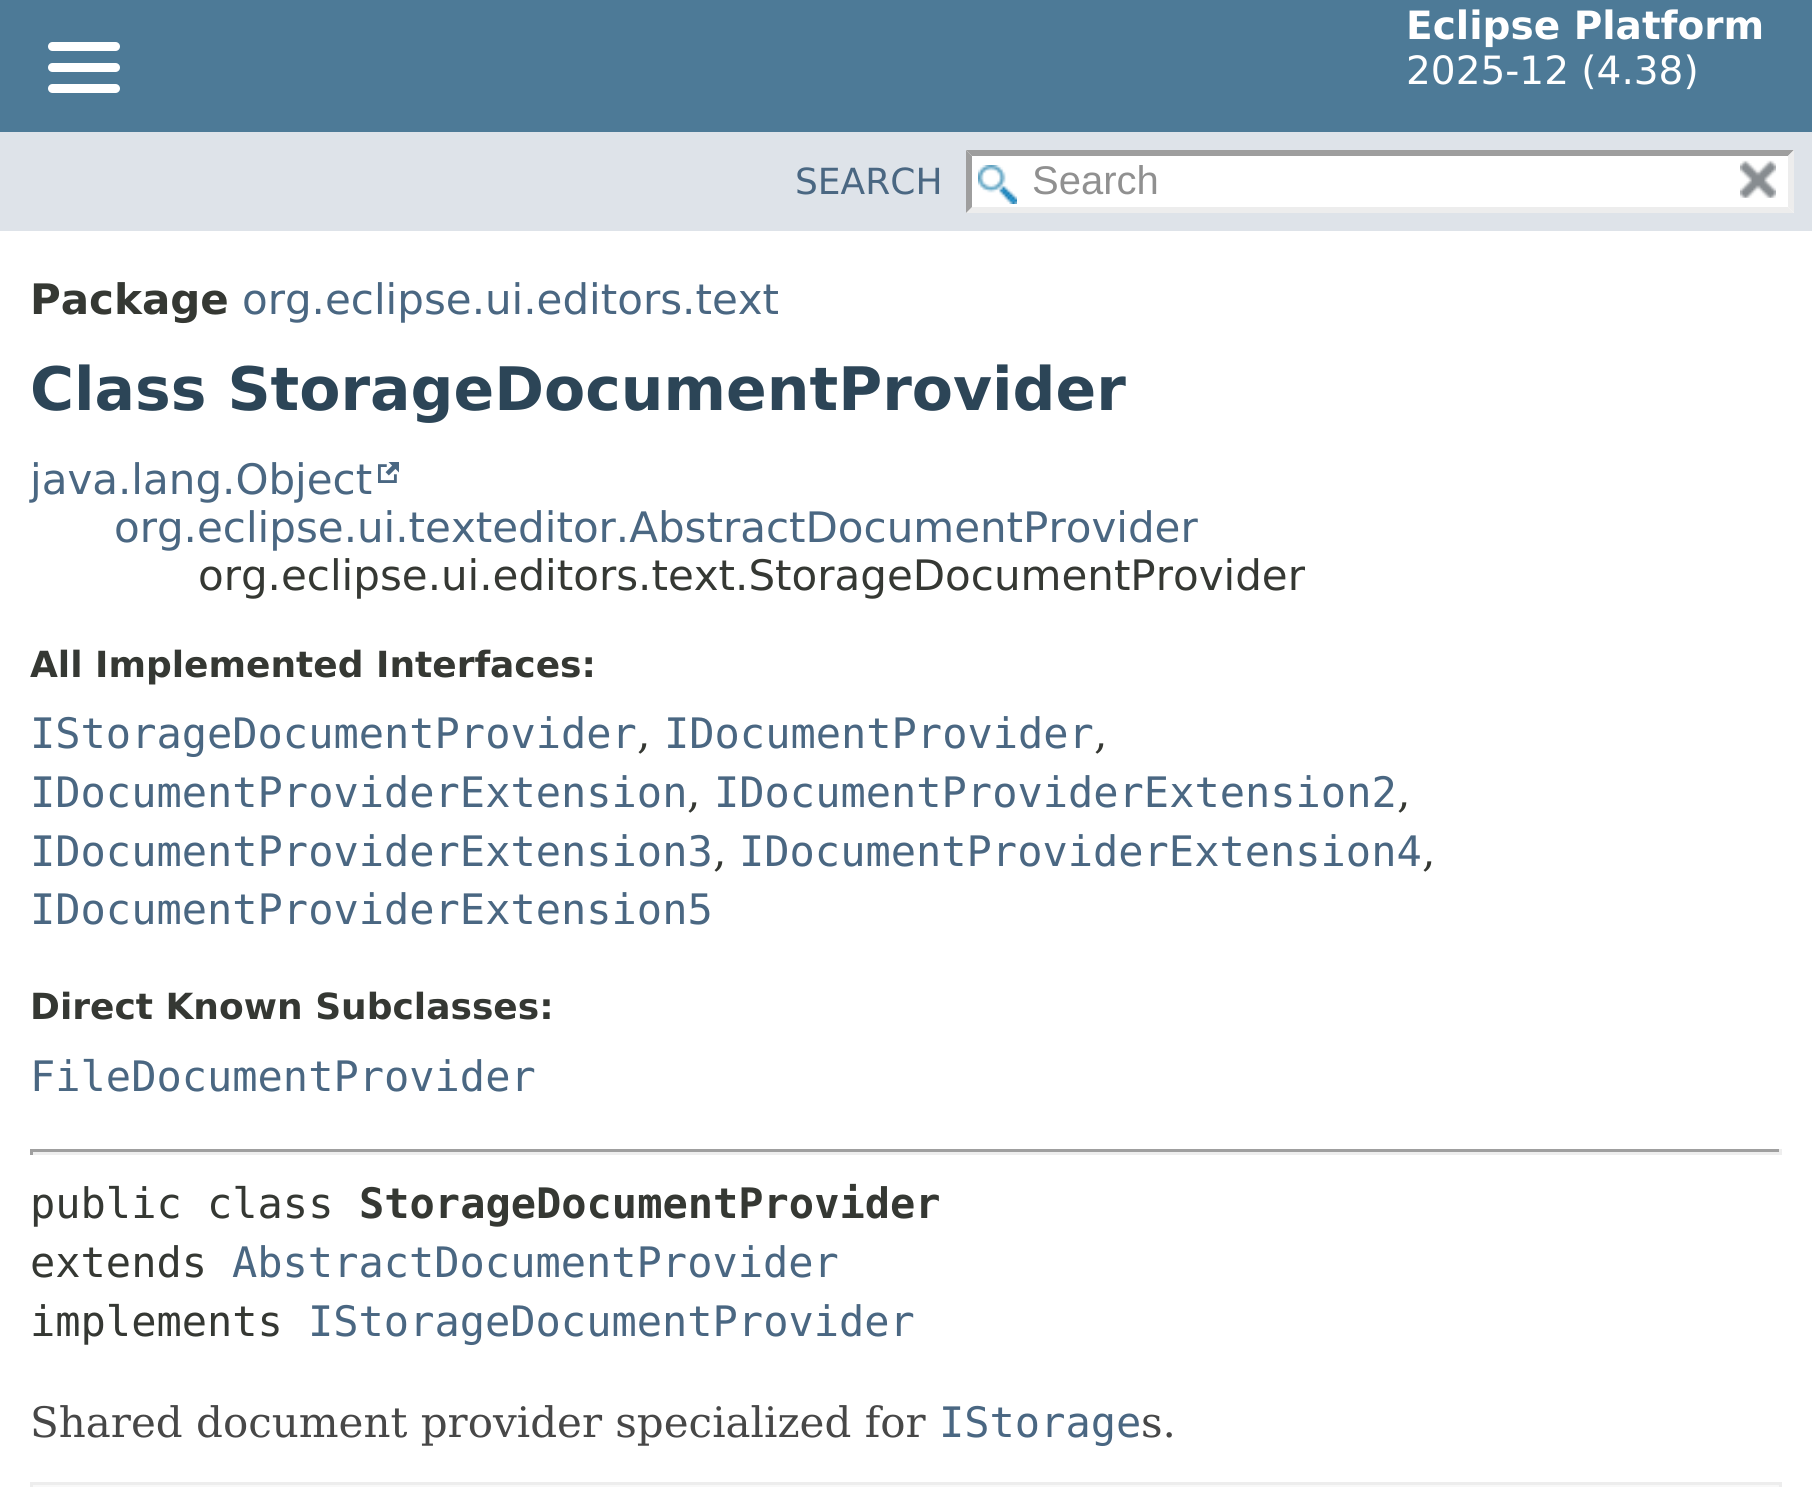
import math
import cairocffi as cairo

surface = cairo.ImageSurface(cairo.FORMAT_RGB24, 1812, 1487)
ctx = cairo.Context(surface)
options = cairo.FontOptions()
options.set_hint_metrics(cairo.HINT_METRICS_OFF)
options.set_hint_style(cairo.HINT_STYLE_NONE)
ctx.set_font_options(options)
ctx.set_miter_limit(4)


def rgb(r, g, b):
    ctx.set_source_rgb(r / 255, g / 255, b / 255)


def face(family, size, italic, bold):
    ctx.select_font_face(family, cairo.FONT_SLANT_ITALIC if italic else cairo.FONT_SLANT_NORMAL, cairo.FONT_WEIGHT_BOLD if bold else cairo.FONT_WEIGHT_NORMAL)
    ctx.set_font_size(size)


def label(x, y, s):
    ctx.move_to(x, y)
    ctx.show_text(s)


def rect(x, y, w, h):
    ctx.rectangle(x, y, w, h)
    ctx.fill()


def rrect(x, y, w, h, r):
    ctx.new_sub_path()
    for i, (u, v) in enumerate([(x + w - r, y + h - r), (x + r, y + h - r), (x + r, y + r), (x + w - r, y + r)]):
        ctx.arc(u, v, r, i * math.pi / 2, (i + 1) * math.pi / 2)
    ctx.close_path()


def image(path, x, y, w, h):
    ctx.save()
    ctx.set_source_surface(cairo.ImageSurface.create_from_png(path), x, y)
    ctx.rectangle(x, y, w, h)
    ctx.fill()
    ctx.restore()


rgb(255, 255, 255)
ctx.paint()
rgb(77, 122, 151)
rect(0, 0, 1812, 132)
rgb(255, 255, 255)
rrect(48, 42, 72, 9, 4.5)
ctx.fill()
rrect(48, 63, 72, 9, 4.5)
ctx.fill()
rrect(48, 84, 72, 9, 4.5)
ctx.fill()
face('DejaVu Sans', 39, 0, 1)
label(1406, 39, 'Eclipse Platform')
face('DejaVu Sans', 39, 0, 0)
label(1406, 84, '2025-12 (4.38)')
rgb(222, 227, 233)
rect(0, 132, 1812, 99)
face('DejaVu Sans', 36, 0, 0)
rgb(74, 103, 130)
label(795, 194, 'SEARCH')
rgb(255, 255, 255)
rect(966, 150, 828, 63)
image('image0.png', 978, 165, 39, 39)
rgb(158, 158, 158)
ctx.new_path()
ctx.move_to(966, 150)
ctx.line_to(1794, 150)
ctx.line_to(1788, 156)
ctx.line_to(972, 156)
ctx.close_path()
ctx.fill()
rgb(237, 237, 237)
ctx.new_path()
ctx.move_to(1794, 150)
ctx.line_to(1794, 213)
ctx.line_to(1788, 207)
ctx.line_to(1788, 156)
ctx.close_path()
ctx.fill()
ctx.new_path()
ctx.move_to(1794, 213)
ctx.line_to(966, 213)
ctx.line_to(972, 207)
ctx.line_to(1788, 207)
ctx.close_path()
ctx.fill()
rgb(158, 158, 158)
ctx.new_path()
ctx.move_to(966, 213)
ctx.line_to(966, 150)
ctx.line_to(972, 156)
ctx.line_to(972, 207)
ctx.close_path()
ctx.fill()
face('Liberation Sans', 40, 0, 0)
rgb(144, 144, 144)
label(1032, 194, 'Search')
image('image1.png', 1740, 160, 36, 38)
face('DejaVu Sans', 42, 0, 1)
rgb(53, 56, 51)
label(30, 314, 'Package')
face('DejaVu Sans', 42, 0, 0)
rgb(74, 103, 130)
label(242, 314, 'org.eclipse.ui.editors.text')
face('DejaVu Sans', 60, 0, 1)
rgb(44, 69, 87)
label(30, 410, 'Class StorageDocumentProvider')
face('DejaVu Sans', 42, 0, 0)
rgb(74, 103, 130)
label(30, 494, 'java.lang.Object')
image('image2.png', 378, 462, 21, 21)
label(114, 542, 'org.eclipse.ui.texteditor.AbstractDocumentProvider')
rgb(53, 56, 51)
label(198, 590, 'org.eclipse.ui.editors.text.StorageDocumentProvider')
face('DejaVu Sans', 36, 0, 1)
label(30, 677, 'All Implemented Interfaces:')
face('DejaVu Sans Mono', 42, 0, 0)
rgb(74, 103, 130)
label(30, 748, 'IStorageDocumentProvider')
face('DejaVu Serif', 42, 0, 0)
rgb(53, 56, 51)
label(637, 748, ',')
face('DejaVu Sans Mono', 42, 0, 0)
rgb(74, 103, 130)
label(664, 748, 'IDocumentProvider')
face('DejaVu Serif', 42, 0, 0)
rgb(53, 56, 51)
label(1094, 748, ',')
face('DejaVu Sans Mono', 42, 0, 0)
rgb(74, 103, 130)
label(30, 807, 'IDocumentProviderExtension')
face('DejaVu Serif', 42, 0, 0)
rgb(53, 56, 51)
label(687, 807, ',')
face('DejaVu Sans Mono', 42, 0, 0)
rgb(74, 103, 130)
label(714, 807, 'IDocumentProviderExtension2')
face('DejaVu Serif', 42, 0, 0)
rgb(53, 56, 51)
label(1397, 807, ',')
face('DejaVu Sans Mono', 42, 0, 0)
rgb(74, 103, 130)
label(30, 866, 'IDocumentProviderExtension3')
face('DejaVu Serif', 42, 0, 0)
rgb(53, 56, 51)
label(713, 866, ',')
face('DejaVu Sans Mono', 42, 0, 0)
rgb(74, 103, 130)
label(739, 866, 'IDocumentProviderExtension4')
face('DejaVu Serif', 42, 0, 0)
rgb(53, 56, 51)
label(1422, 866, ',')
face('DejaVu Sans Mono', 42, 0, 0)
rgb(74, 103, 130)
label(30, 924, 'IDocumentProviderExtension5')
face('DejaVu Sans', 36, 0, 1)
rgb(53, 56, 51)
label(30, 1019, 'Direct Known Subclasses:')
face('DejaVu Sans Mono', 42, 0, 0)
rgb(74, 103, 130)
label(30, 1091, 'FileDocumentProvider')
rgb(159, 159, 159)
rect(30, 1149, 1752, 3)
rgb(238, 238, 238)
rect(1779, 1149, 3, 6)
rect(30, 1152, 1752, 3)
rgb(159, 159, 159)
rect(30, 1149, 3, 6)
rgb(53, 56, 51)
label(30, 1218, 'public class')
face('DejaVu Sans Mono', 42, 0, 1)
label(359, 1218, 'StorageDocumentProvider')
face('DejaVu Sans Mono', 42, 0, 0)
label(30, 1277, 'extends')
rgb(74, 103, 130)
label(232, 1277, 'AbstractDocumentProvider')
rgb(53, 56, 51)
label(30, 1336, 'implements')
rgb(74, 103, 130)
label(308, 1336, 'IStorageDocumentProvider')
face('DejaVu Serif', 42, 0, 0)
rgb(71, 71, 71)
label(30, 1437, 'Shared document provider specialized for')
face('DejaVu Sans Mono', 42, 0, 0)
rgb(74, 103, 130)
label(939, 1437, 'IStorage')
face('DejaVu Serif', 42, 0, 0)
rgb(71, 71, 71)
label(1141, 1437, 's.')
rgb(248, 248, 248)
ctx.rectangle(31.5, 1483.5, 1749, 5)
ctx.fill_preserve()
rgb(237, 237, 237)
ctx.set_line_width(3)
ctx.stroke()
surface.write_to_png('render.png')
